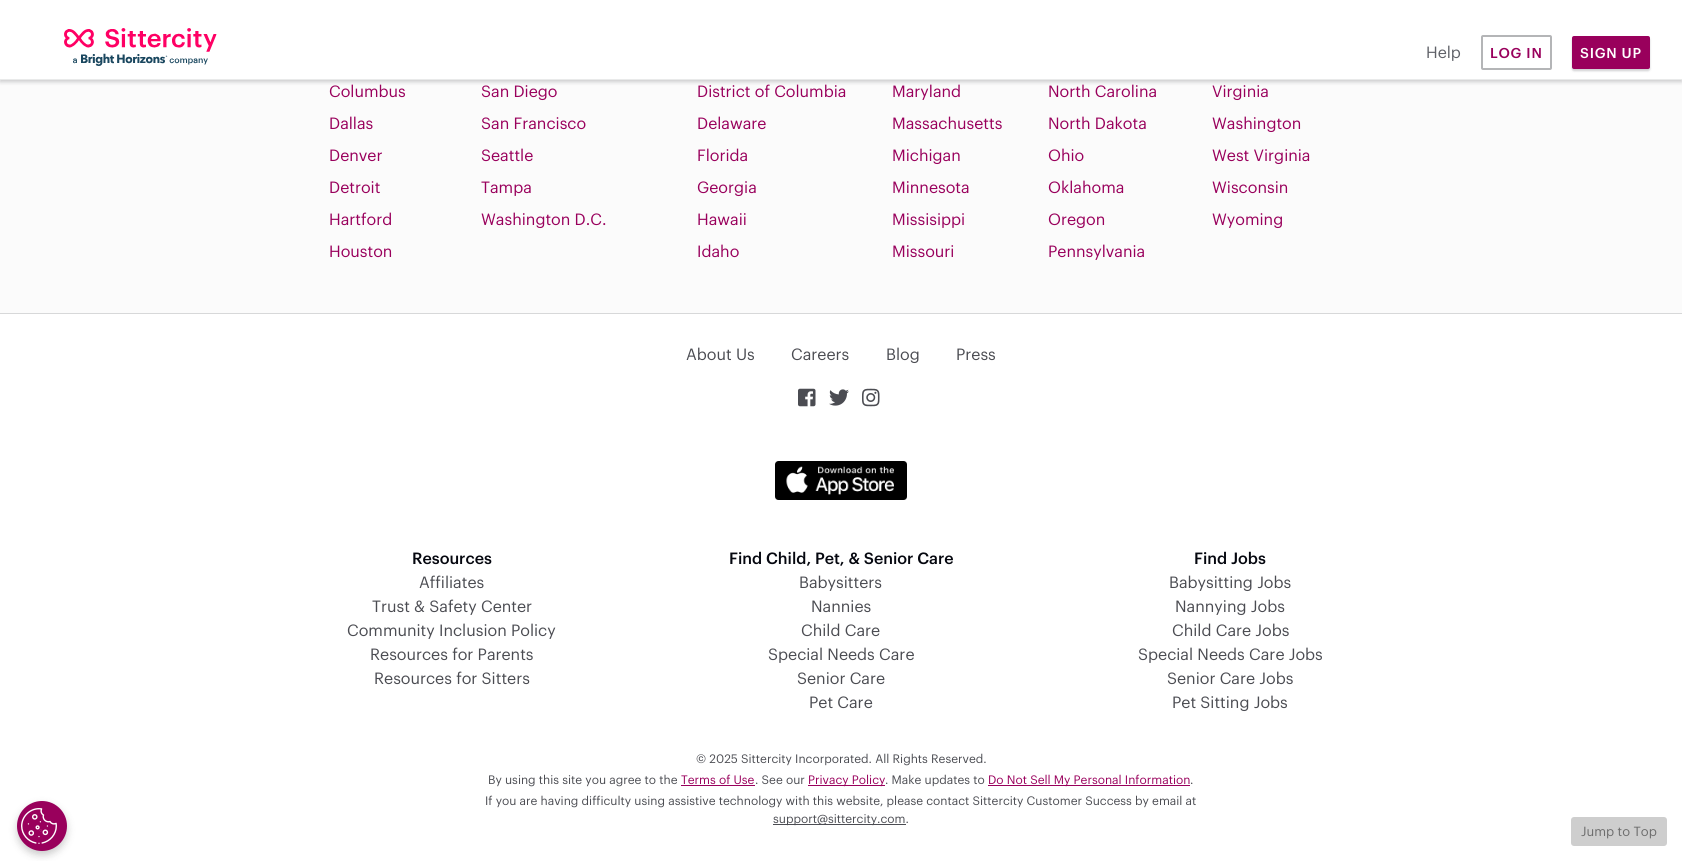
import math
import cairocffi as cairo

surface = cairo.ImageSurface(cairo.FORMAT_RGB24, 1682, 861)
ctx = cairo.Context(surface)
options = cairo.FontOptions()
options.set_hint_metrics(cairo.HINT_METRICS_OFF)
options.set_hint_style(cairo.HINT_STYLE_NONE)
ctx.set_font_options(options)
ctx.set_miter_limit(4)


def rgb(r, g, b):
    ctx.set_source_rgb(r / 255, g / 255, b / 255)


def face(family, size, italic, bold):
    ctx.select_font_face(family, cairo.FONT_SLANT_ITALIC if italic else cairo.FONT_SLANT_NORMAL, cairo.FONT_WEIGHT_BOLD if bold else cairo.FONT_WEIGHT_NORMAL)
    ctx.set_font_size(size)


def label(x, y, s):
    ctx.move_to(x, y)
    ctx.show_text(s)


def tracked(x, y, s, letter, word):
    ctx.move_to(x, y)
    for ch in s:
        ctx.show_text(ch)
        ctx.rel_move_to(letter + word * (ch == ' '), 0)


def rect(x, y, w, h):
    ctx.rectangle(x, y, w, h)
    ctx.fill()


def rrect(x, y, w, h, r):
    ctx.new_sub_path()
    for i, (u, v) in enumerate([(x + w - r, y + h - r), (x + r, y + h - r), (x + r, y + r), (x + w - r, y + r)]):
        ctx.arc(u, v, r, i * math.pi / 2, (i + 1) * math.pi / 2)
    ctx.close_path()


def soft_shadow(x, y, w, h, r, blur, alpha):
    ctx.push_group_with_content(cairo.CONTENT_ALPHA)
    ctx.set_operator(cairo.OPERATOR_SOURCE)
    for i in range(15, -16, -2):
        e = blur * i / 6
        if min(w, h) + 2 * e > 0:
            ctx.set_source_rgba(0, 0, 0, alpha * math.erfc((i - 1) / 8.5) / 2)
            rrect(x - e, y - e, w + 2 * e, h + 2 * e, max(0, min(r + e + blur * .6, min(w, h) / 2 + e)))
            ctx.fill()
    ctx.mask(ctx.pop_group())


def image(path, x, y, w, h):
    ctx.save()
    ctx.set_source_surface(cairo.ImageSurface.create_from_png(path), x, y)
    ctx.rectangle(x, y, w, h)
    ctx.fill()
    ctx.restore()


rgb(251, 251, 251)
ctx.paint()
rgb(5, 7, 15)
soft_shadow(0, 2, 1682, 80, 0, 2, 0.2)
rgb(255, 255, 255)
rect(0, 0, 1682, 79)
rgb(233, 234, 234)
rect(0, 79, 1682, 1)
image('image0.png', 64, 28, 153, 38)
face('Graphik', 16, 0, 0)
rgb(95, 97, 104)
label(1426, 58, 'Help')
rrect(1482, 36, 69, 33, 1)
rgb(180, 181, 183)
ctx.stroke()
face('Graphik Medium', 14, 0, 0)
rgb(153, 0, 92)
tracked(1490, 58, 'LOG IN', 0.75, 0)
rgb(5, 7, 15)
soft_shadow(1572, 38, 78, 33, 2, 1, 0.19)
rgb(153, 0, 92)
rrect(1572, 36, 78, 33, 2)
ctx.fill()
rgb(255, 255, 255)
tracked(1580, 58, 'SIGN UP', 0.75, 0)
rect(0, 314, 1682, 547)
rgb(0, 0, 0)
soft_shadow(17, 805, 50, 50, 25, 4, 0.2)
rgb(153, 0, 92)
ctx.arc(42, 826, 25, 0, 2 * math.pi)
ctx.fill()
image('image1.png', 21, 808, 36, 36)
face('Graphik', 16, 0, 0)
label(329, 97, 'Columbus')
label(481, 97, 'San Diego')
label(329, 129, 'Dallas')
label(481, 129, 'San Francisco')
label(329, 161, 'Denver')
label(481, 161, 'Seattle')
label(329, 193, 'Detroit')
label(481, 193, 'Tampa')
label(329, 225, 'Hartford')
label(481, 225, 'Washington D.C.')
label(329, 257, 'Houston')
label(697, 97, 'District of Columbia')
label(892, 97, 'Maryland')
label(1048, 97, 'North Carolina')
label(1212, 97, 'Virginia')
label(697, 129, 'Delaware')
label(892, 129, 'Massachusetts')
label(1048, 129, 'North Dakota')
label(1212, 129, 'Washington')
label(697, 161, 'Florida')
label(892, 161, 'Michigan')
label(1048, 161, 'Ohio')
label(1212, 161, 'West Virginia')
label(697, 193, 'Georgia')
label(892, 193, 'Minnesota')
label(1048, 193, 'Oklahoma')
label(1212, 193, 'Wisconsin')
label(697, 225, 'Hawaii')
label(892, 225, 'Missisippi')
label(1048, 225, 'Oregon')
label(1212, 225, 'Wyoming')
label(697, 257, 'Idaho')
label(892, 257, 'Missouri')
label(1048, 257, 'Pennsylvania')
rgb(215, 216, 217)
rect(0, 313, 1682, 1)
rgb(75, 76, 82)
label(686, 360, 'About Us')
label(791, 360, 'Careers')
label(886, 360, 'Blog')
label(956, 360, 'Press')
image('image2.png', 798, 388, 18, 19)
image('image3.png', 829, 389, 20, 17)
image('image4.png', 862, 388, 18, 19)
image('image5.png', 775, 461, 132, 39)
face('Graphik Medium', 16, 0, 0)
rgb(5, 7, 15)
label(412, 564, 'Resources')
face('Graphik', 16, 0, 0)
rgb(75, 76, 82)
label(419, 588, 'Affiliates')
label(372, 612, 'Trust & Safety Center')
label(347, 636, 'Community Inclusion Policy')
label(370, 660, 'Resources for Parents')
label(374, 684, 'Resources for Sitters')
face('Graphik Medium', 16, 0, 0)
rgb(5, 7, 15)
label(729, 564, 'Find Child, Pet, & Senior Care')
face('Graphik', 16, 0, 0)
rgb(75, 76, 82)
label(799, 588, 'Babysitters')
label(811, 612, 'Nannies')
label(801, 636, 'Child Care')
label(768, 660, 'Special Needs Care')
label(797, 684, 'Senior Care')
label(809, 708, 'Pet Care')
face('Graphik Medium', 16, 0, 0)
rgb(5, 7, 15)
label(1194, 564, 'Find Jobs')
face('Graphik', 16, 0, 0)
rgb(75, 76, 82)
label(1169, 588, 'Babysitting Jobs')
label(1175, 612, 'Nannying Jobs')
label(1172, 636, 'Child Care Jobs')
label(1138, 660, 'Special Needs Care Jobs')
label(1167, 684, 'Senior Care Jobs')
label(1172, 708, 'Pet Sitting Jobs')
face('Graphik', 12, 0, 0)
label(696, 763, '© 2025 Sittercity Incorporated. All Rights Reserved.')
label(488, 784, 'By using this site you agree to the')
rgb(153, 0, 92)
label(681, 784, 'Terms of Use')
rect(681, 785, 74, 1)
rgb(75, 76, 82)
label(755, 784, '. See our')
rgb(153, 0, 92)
rect(808, 785, 77, 1)
label(808, 784, 'Privacy Policy')
rgb(75, 76, 82)
label(885, 784, '. Make updates to')
rgb(153, 0, 92)
rect(988, 785, 202, 1)
label(988, 784, 'Do Not Sell My Personal Information')
rgb(75, 76, 82)
label(1190, 784, '.')
label(485, 805, 'If you are having difficulty using assistive technology with this website, please contact Sittercity Customer Success by email at')
rect(773, 824, 133, 1)
label(773, 823, 'support@sittercity.com.')
rgb(206, 206, 206)
rrect(1571, 817, 96, 29, 3)
ctx.fill()
face('Graphik', 13, 0, 0)
rgb(109, 109, 109)
label(1581, 836, 'Jump to Top')
surface.write_to_png('render.png')
